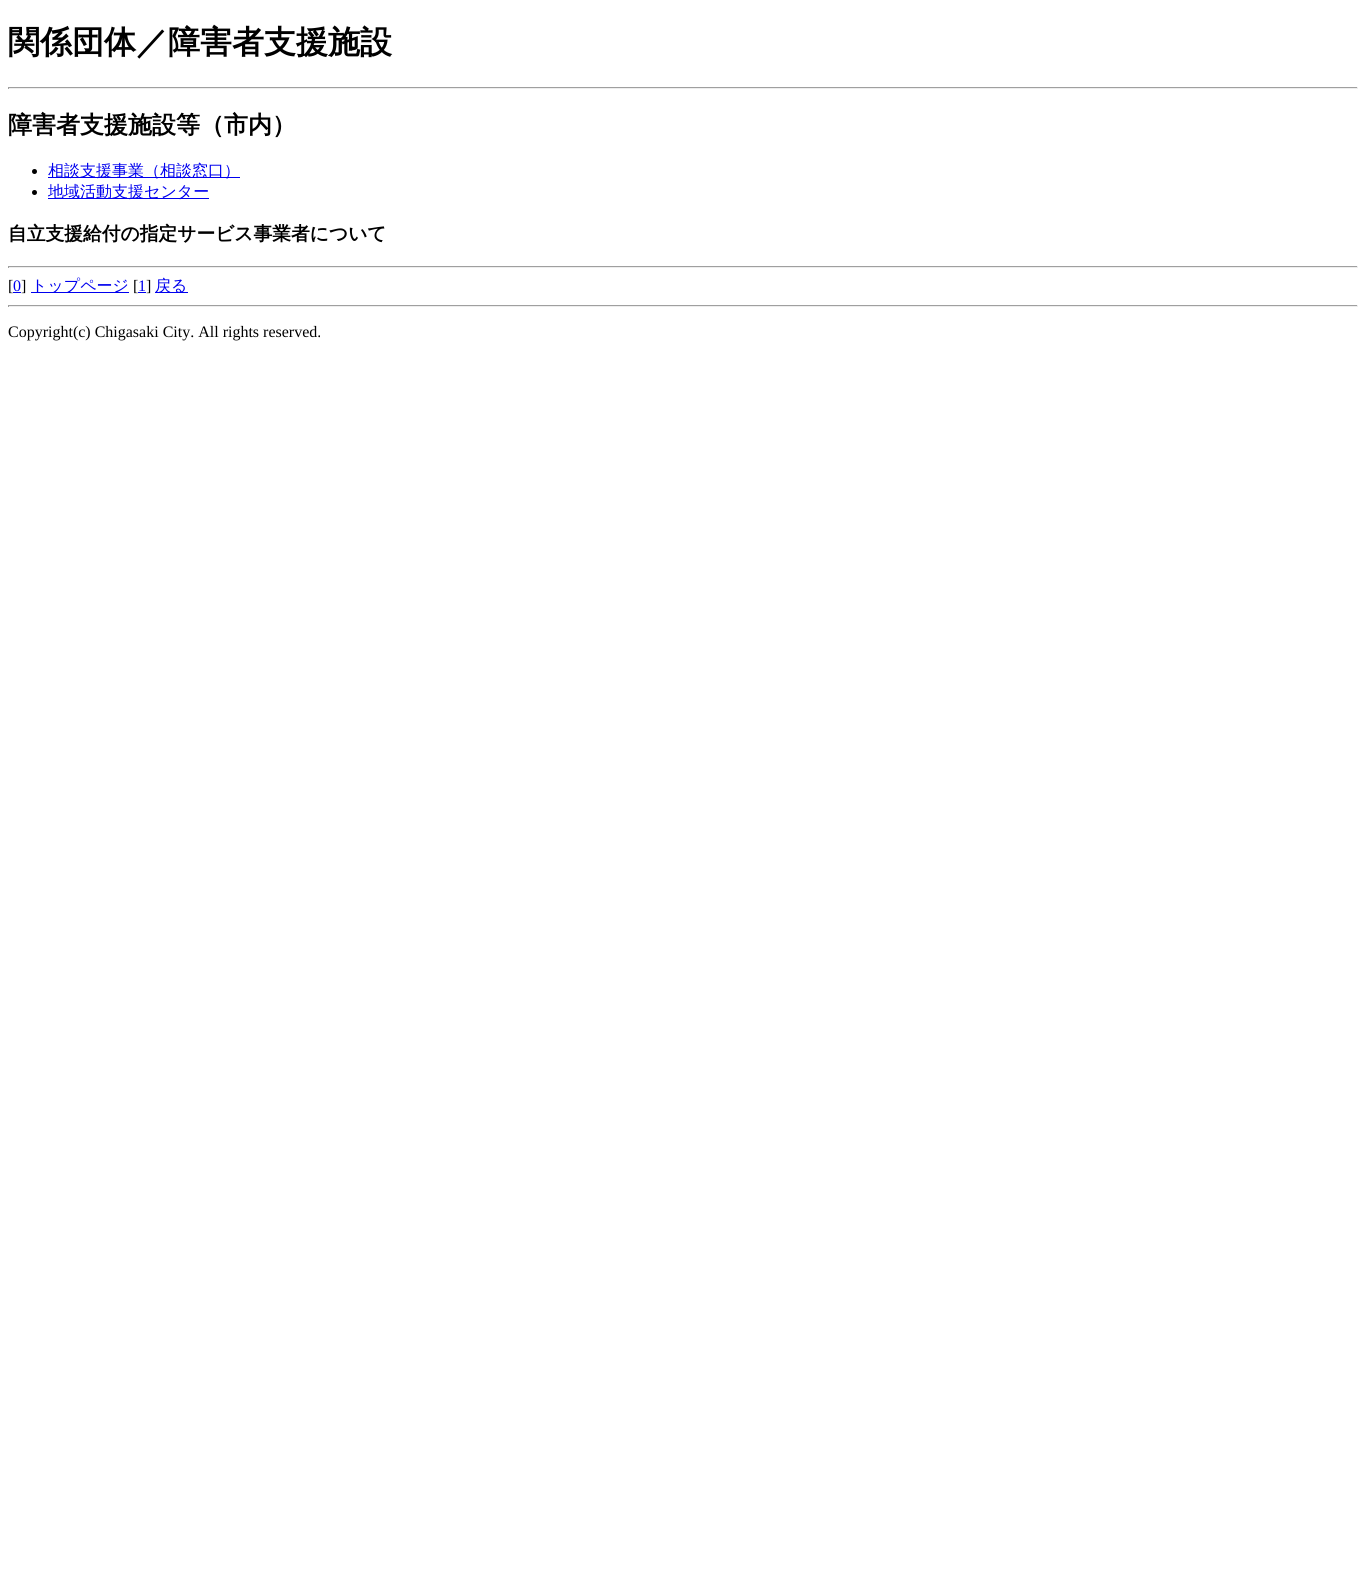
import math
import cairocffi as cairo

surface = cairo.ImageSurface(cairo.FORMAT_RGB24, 1366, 1589)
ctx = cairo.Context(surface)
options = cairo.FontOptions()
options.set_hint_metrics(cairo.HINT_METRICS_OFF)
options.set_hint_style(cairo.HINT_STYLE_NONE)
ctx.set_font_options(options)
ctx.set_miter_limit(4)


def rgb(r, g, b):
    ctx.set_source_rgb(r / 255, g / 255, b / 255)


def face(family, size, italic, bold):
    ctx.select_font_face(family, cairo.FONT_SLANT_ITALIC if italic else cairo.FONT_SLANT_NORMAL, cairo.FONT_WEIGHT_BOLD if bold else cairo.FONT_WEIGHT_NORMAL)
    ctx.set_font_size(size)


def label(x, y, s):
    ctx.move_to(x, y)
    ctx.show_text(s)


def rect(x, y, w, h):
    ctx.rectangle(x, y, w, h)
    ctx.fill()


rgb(255, 255, 255)
ctx.paint()
face('WenQuanYi Zen Hei', 32, 0, 1)
rgb(0, 0, 0)
label(8, 53, '関係団体／障害者支援施設')
rgb(159, 159, 159)
rect(8, 87, 1350, 1)
rgb(238, 238, 238)
rect(1357, 87, 1, 2)
rect(8, 88, 1350, 1)
rgb(159, 159, 159)
rect(8, 87, 1, 2)
face('WenQuanYi Zen Hei', 24, 0, 1)
rgb(0, 0, 0)
label(8, 133, '障害者支援施設等（市内）')
ctx.new_path()
ctx.arc(34.5, 171.5, 2.5, 0, 2 * math.pi)
ctx.fill()
rgb(0, 0, 238)
rect(48, 177, 192, 1)
face('WenQuanYi Zen Hei Medium', 16, 0, 0)
label(48, 176, '相談支援事業（相談窓口）')
rgb(0, 0, 0)
ctx.new_path()
ctx.arc(34.5, 192.5, 2.5, 0, 2 * math.pi)
ctx.fill()
rgb(0, 0, 238)
rect(48, 198, 161, 1)
label(48, 197, '地域活動支援センター')
face('WenQuanYi Zen Hei', 18.75, 0, 1)
rgb(0, 0, 0)
label(8, 240, '自立支援給付の指定サービス事業者について')
rgb(159, 159, 159)
rect(8, 266, 1350, 1)
rgb(238, 238, 238)
rect(1357, 266, 1, 2)
rect(8, 267, 1350, 1)
rgb(159, 159, 159)
rect(8, 266, 1, 2)
face('Liberation Serif', 16, 0, 0)
rgb(0, 0, 0)
label(8, 291, '[')
rgb(0, 0, 238)
label(13, 291, '0')
rect(13, 292, 8, 1)
rgb(0, 0, 0)
label(21, 291, ']')
rgb(0, 0, 238)
rect(31, 292, 98, 1)
face('WenQuanYi Zen Hei Medium', 16, 0, 0)
label(31, 291, 'トップページ')
face('Liberation Serif', 16, 0, 0)
rgb(0, 0, 0)
label(133, 291, '[')
rgb(0, 0, 238)
label(138, 291, '1')
rect(138, 292, 8, 1)
rgb(0, 0, 0)
label(146, 291, ']')
rgb(0, 0, 238)
rect(155, 292, 33, 1)
face('WenQuanYi Zen Hei Medium', 16, 0, 0)
label(155, 291, '戻る')
rgb(159, 159, 159)
rect(8, 305, 1350, 1)
rgb(238, 238, 238)
rect(1357, 305, 1, 2)
rect(8, 306, 1350, 1)
rgb(159, 159, 159)
rect(8, 305, 1, 2)
face('Liberation Serif', 16, 0, 0)
rgb(0, 0, 0)
label(8, 337, 'Copyright(c) Chigasaki City. All rights reserved.')
surface.write_to_png('render.png')
